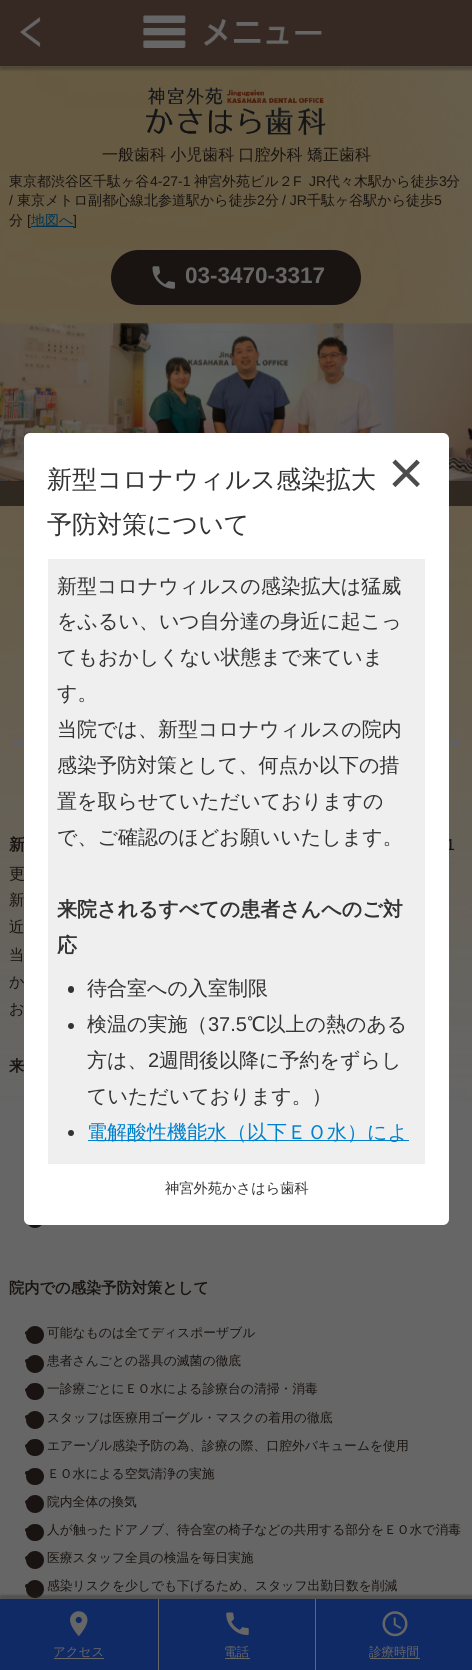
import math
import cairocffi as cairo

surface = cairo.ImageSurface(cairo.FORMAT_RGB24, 472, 1670)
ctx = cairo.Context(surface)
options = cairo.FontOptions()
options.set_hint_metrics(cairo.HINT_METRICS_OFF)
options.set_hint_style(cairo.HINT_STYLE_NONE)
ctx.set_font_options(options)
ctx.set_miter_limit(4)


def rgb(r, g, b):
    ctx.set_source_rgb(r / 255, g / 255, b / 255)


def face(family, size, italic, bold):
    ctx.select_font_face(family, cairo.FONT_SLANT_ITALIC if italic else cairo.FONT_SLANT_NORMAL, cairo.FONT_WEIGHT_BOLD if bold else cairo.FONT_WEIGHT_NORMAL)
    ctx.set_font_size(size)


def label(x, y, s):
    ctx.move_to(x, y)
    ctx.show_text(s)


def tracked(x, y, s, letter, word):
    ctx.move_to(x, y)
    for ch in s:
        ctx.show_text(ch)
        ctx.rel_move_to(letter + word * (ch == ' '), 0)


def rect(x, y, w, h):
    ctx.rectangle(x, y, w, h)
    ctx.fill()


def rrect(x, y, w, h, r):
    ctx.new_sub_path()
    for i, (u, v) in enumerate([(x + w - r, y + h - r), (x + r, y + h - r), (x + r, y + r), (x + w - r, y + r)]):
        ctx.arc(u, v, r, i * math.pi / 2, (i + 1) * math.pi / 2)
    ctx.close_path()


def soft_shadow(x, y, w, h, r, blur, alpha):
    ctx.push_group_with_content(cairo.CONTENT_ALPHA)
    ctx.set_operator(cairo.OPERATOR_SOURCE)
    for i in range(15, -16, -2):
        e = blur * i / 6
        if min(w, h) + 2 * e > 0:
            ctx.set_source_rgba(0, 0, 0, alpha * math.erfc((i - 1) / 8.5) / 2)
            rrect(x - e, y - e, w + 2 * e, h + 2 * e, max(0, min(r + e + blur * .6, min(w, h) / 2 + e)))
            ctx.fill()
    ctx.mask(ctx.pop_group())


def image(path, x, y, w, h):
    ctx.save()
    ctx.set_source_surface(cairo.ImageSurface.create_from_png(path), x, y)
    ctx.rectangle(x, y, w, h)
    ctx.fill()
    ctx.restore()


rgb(102, 88, 61)
ctx.paint()
image('image0.png', 0, 66, 472, 1533)
rgb(32, 32, 32)
soft_shadow(0, 4, 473, 66, 0, 1, 0.3)
rgb(54, 40, 34)
rect(0, 0, 472, 66)
image('image1.png', 20, 15, 303, 33)
image('image2.png', 146, 87, 180, 49)
face('WenQuanYi Zen Hei Medium', 16, 0, 0)
rgb(25, 20, 17)
tracked(102, 160, '一般歯科 小児歯科 口腔外科 矯正歯科', 0, -0.5)
face('WenQuanYi Zen Hei Medium', 14, 0, 0)
label(9, 186, '東京都渋谷区千駄ヶ谷')
face('Liberation Sans', 14, 0, 0)
label(150, 186, '4-27-1')
face('WenQuanYi Zen Hei Medium', 14, 0, 0)
label(194, 186, '神宮外苑ビル２')
face('Liberation Sans', 14, 0, 0)
label(293, 186, 'F')
label(309, 186, 'JR')
face('WenQuanYi Zen Hei Medium', 14, 0, 0)
label(326, 186, '代々木駅から徒歩')
face('Liberation Sans', 14, 0, 0)
label(439, 186, '3')
face('WenQuanYi Zen Hei Medium', 14, 0, 0)
label(446, 186, '分')
face('Liberation Sans', 14, 0, 0)
label(9, 205, '/')
face('WenQuanYi Zen Hei Medium', 14, 0, 0)
label(17, 205, '東京メトロ副都心線北参道駅から徒歩')
face('Liberation Sans', 14, 0, 0)
label(257, 205, '2')
face('WenQuanYi Zen Hei Medium', 14, 0, 0)
label(265, 205, '分')
face('Liberation Sans', 14, 0, 0)
label(282, 205, '/ JR')
face('WenQuanYi Zen Hei Medium', 14, 0, 0)
label(307, 205, '千駄ヶ谷駅から徒歩')
face('Liberation Sans', 14, 0, 0)
label(434, 205, '5')
face('WenQuanYi Zen Hei Medium', 14, 0, 0)
label(9, 225, '分')
face('Liberation Sans', 14, 0, 0)
label(27, 225, '[')
rgb(0, 52, 82)
rect(31, 226, 43, 1)
face('WenQuanYi Zen Hei Medium', 14, 0, 0)
label(31, 225, '地図へ')
face('Liberation Sans', 14, 0, 0)
rgb(25, 20, 17)
label(73, 225, ']')
rrect(111, 250, 250, 55, 27.5)
ctx.fill()
image('image3.png', 152, 266, 23, 23)
face('Liberation Sans', 22.5, 0, 1)
rgb(102, 102, 102)
label(185, 283, '03-3470-3317')
image('image4.png', 0, 323, 472, 159)
ctx.set_source_rgba(0.098, 0.078, 0.067, 0.7)
rect(0, 481, 472, 25)
rgb(96, 96, 96)
rect(14, 739, 446, 6)
face('WenQuanYi Zen Hei', 16, 0, 1)
rgb(25, 20, 17)
label(9, 850, '新')
face('Liberation Sans', 16, 0, 0)
label(446, 850, '1')
face('WenQuanYi Zen Hei Medium', 16, 0, 0)
label(9, 879, '更')
face('WenQuanYi Zen Hei Medium', 15.25, 0, 0)
label(9, 905, '新')
label(9, 932, '近')
label(9, 960, '当')
label(9, 987, 'か')
label(9, 1014, 'お')
face('WenQuanYi Zen Hei', 15.25, 0, 1)
label(9, 1071, '来')
ctx.new_path()
ctx.arc(35, 1219, 9, 0, 2 * math.pi)
ctx.fill()
label(9, 1293, '院内での感染予防対策として')
rgb(20, 20, 20)
ctx.new_path()
ctx.arc(27, 1333, 2, 0, 2 * math.pi)
ctx.fill()
rgb(25, 20, 17)
ctx.arc(35, 1335, 9, 0, 2 * math.pi)
ctx.fill()
face('WenQuanYi Zen Hei Medium', 12.8, 0, 0)
label(47, 1337, '可能なものは全てディスポーザブル')
rgb(20, 20, 20)
ctx.new_path()
ctx.arc(27, 1361, 2, 0, 2 * math.pi)
ctx.fill()
rgb(25, 20, 17)
ctx.arc(35, 1364, 9, 0, 2 * math.pi)
ctx.fill()
label(47, 1365, '患者さんごとの器具の滅菌の徹底')
rgb(20, 20, 20)
ctx.new_path()
ctx.arc(27, 1390, 2, 0, 2 * math.pi)
ctx.fill()
rgb(25, 20, 17)
rrect(26, 1383, 18, 17, 8.5)
ctx.fill()
label(47, 1393, '一診療ごとにＥＯ水による診療台の清掃・消毒')
rgb(20, 20, 20)
ctx.new_path()
ctx.arc(27, 1417, 2, 0, 2 * math.pi)
ctx.fill()
rgb(25, 20, 17)
ctx.arc(35, 1420, 9, 0, 2 * math.pi)
ctx.fill()
label(47, 1422, 'スタッフは医療用ゴーグル・マスクの着用の徹底')
rgb(20, 20, 20)
ctx.new_path()
ctx.arc(27, 1446, 2, 0, 2 * math.pi)
ctx.fill()
rgb(25, 20, 17)
rrect(26, 1439, 18, 17, 8.5)
ctx.fill()
label(47, 1450, 'エアーゾル感染予防の為、診療の際、口腔外バキュームを使用')
rgb(20, 20, 20)
ctx.new_path()
ctx.arc(27, 1473, 2, 0, 2 * math.pi)
ctx.fill()
rgb(25, 20, 17)
rrect(26, 1468, 18, 17, 8.5)
ctx.fill()
label(47, 1478, 'ＥＯ水による空気清浄の実施')
rgb(20, 20, 20)
ctx.new_path()
ctx.arc(27, 1502, 2, 0, 2 * math.pi)
ctx.fill()
rgb(25, 20, 17)
ctx.arc(35, 1504, 9, 0, 2 * math.pi)
ctx.fill()
label(47, 1506, '院内全体の換気')
rgb(20, 20, 20)
ctx.new_path()
ctx.arc(27, 1530, 2, 0, 2 * math.pi)
ctx.fill()
rgb(25, 20, 17)
rrect(26, 1524, 18, 17, 8.5)
ctx.fill()
label(47, 1534, '人が触ったドアノブ、待合室の椅子などの共用する部分をＥＯ水で消毒')
rgb(20, 20, 20)
ctx.new_path()
ctx.arc(27, 1558, 2, 0, 2 * math.pi)
ctx.fill()
rgb(25, 20, 17)
ctx.arc(35, 1560, 9, 0, 2 * math.pi)
ctx.fill()
label(47, 1562, '医療スタッフ全員の検温を毎日実施')
rgb(20, 20, 20)
ctx.new_path()
ctx.arc(27, 1586, 2, 0, 2 * math.pi)
ctx.fill()
rgb(25, 20, 17)
ctx.arc(35, 1589, 9, 0, 2 * math.pi)
ctx.fill()
label(47, 1590, '感染リスクを少しでも下げるため、スタッフ出勤日数を削減')
rgb(255, 255, 255)
rrect(24, 433, 425, 792, 6)
ctx.fill()
face('WenQuanYi Zen Hei Medium', 25, 0, 0)
rgb(51, 51, 51)
label(47, 488, '新型コロナウィルス感染拡大')
label(47, 533, '予防対策について')
rgb(239, 239, 239)
rect(48, 559, 377, 605)
face('WenQuanYi Zen Hei Medium', 20, 0, 0)
rgb(51, 51, 51)
label(57, 593, '新型コロナウィルスの感染拡大は猛威')
label(57, 628, 'をふるい、いつ自分達の身近に起こっ')
label(57, 664, 'てもおかしくない状態まで来ていま')
label(57, 700, 'す。')
label(57, 736, '当院では、新型コロナウィルスの院内')
label(57, 772, '感染予防対策として、何点か以下の措')
label(57, 808, '置を取らせていただいておりますの')
label(57, 844, 'で、ご確認のほどお願いいたします。')
face('WenQuanYi Zen Hei', 20, 0, 1)
label(57, 916, '来院されるすべての患者さんへのご対')
label(57, 952, '応')
rrect(68, 986, 6, 7, 3)
ctx.fill()
face('WenQuanYi Zen Hei Medium', 20, 0, 0)
label(87, 995, '待合室への入室制限')
ctx.new_path()
ctx.arc(71, 1026, 3, 0, 2 * math.pi)
ctx.fill()
label(87, 1031, '検温の実施（')
face('Liberation Sans', 20, 0, 0)
label(208, 1031, '37.5')
face('WenQuanYi Zen Hei Medium', 20, 0, 0)
label(247, 1031, '℃以上の熱のある')
label(87, 1067, '方は、')
face('Liberation Sans', 20, 0, 0)
label(148, 1067, '2')
face('WenQuanYi Zen Hei Medium', 20, 0, 0)
label(159, 1067, '週間後以降に予約をずらし')
label(87, 1103, 'ていただいております。）')
ctx.new_path()
ctx.arc(71, 1133, 3, 0, 2 * math.pi)
ctx.fill()
rgb(0, 129, 205)
rect(88, 1140, 321, 1)
label(87, 1139, '電解酸性機能水（以下ＥＯ水）によ')
face('WenQuanYi Zen Hei Medium', 14.25, 0, 0)
rgb(51, 51, 51)
label(165, 1193, '神宮外苑かさはら歯科')
face('Liberation Sans', 62, 0, 0)
rgb(76, 76, 76)
label(388, 494, '×')
rgb(32, 32, 32)
soft_shadow(0, 1595, 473, 71, 0, 1, 0.3)
rgb(16, 42, 102)
rect(0, 1599, 472, 71)
image('image5.png', 70, 1611, 18, 26)
face('WenQuanYi Zen Hei Medium', 12.5, 0, 0)
rgb(102, 102, 102)
label(53, 1656, 'アクセス')
rect(54, 1658, 50, 1)
rect(158, 1599, 1, 71)
image('image6.png', 226, 1612, 23, 23)
label(224, 1656, '電話')
rect(225, 1658, 25, 1)
rect(315, 1599, 1, 71)
image('image7.png', 382, 1611, 26, 26)
label(369, 1656, '診療時間')
rect(370, 1658, 50, 1)
surface.write_to_png('render.png')
